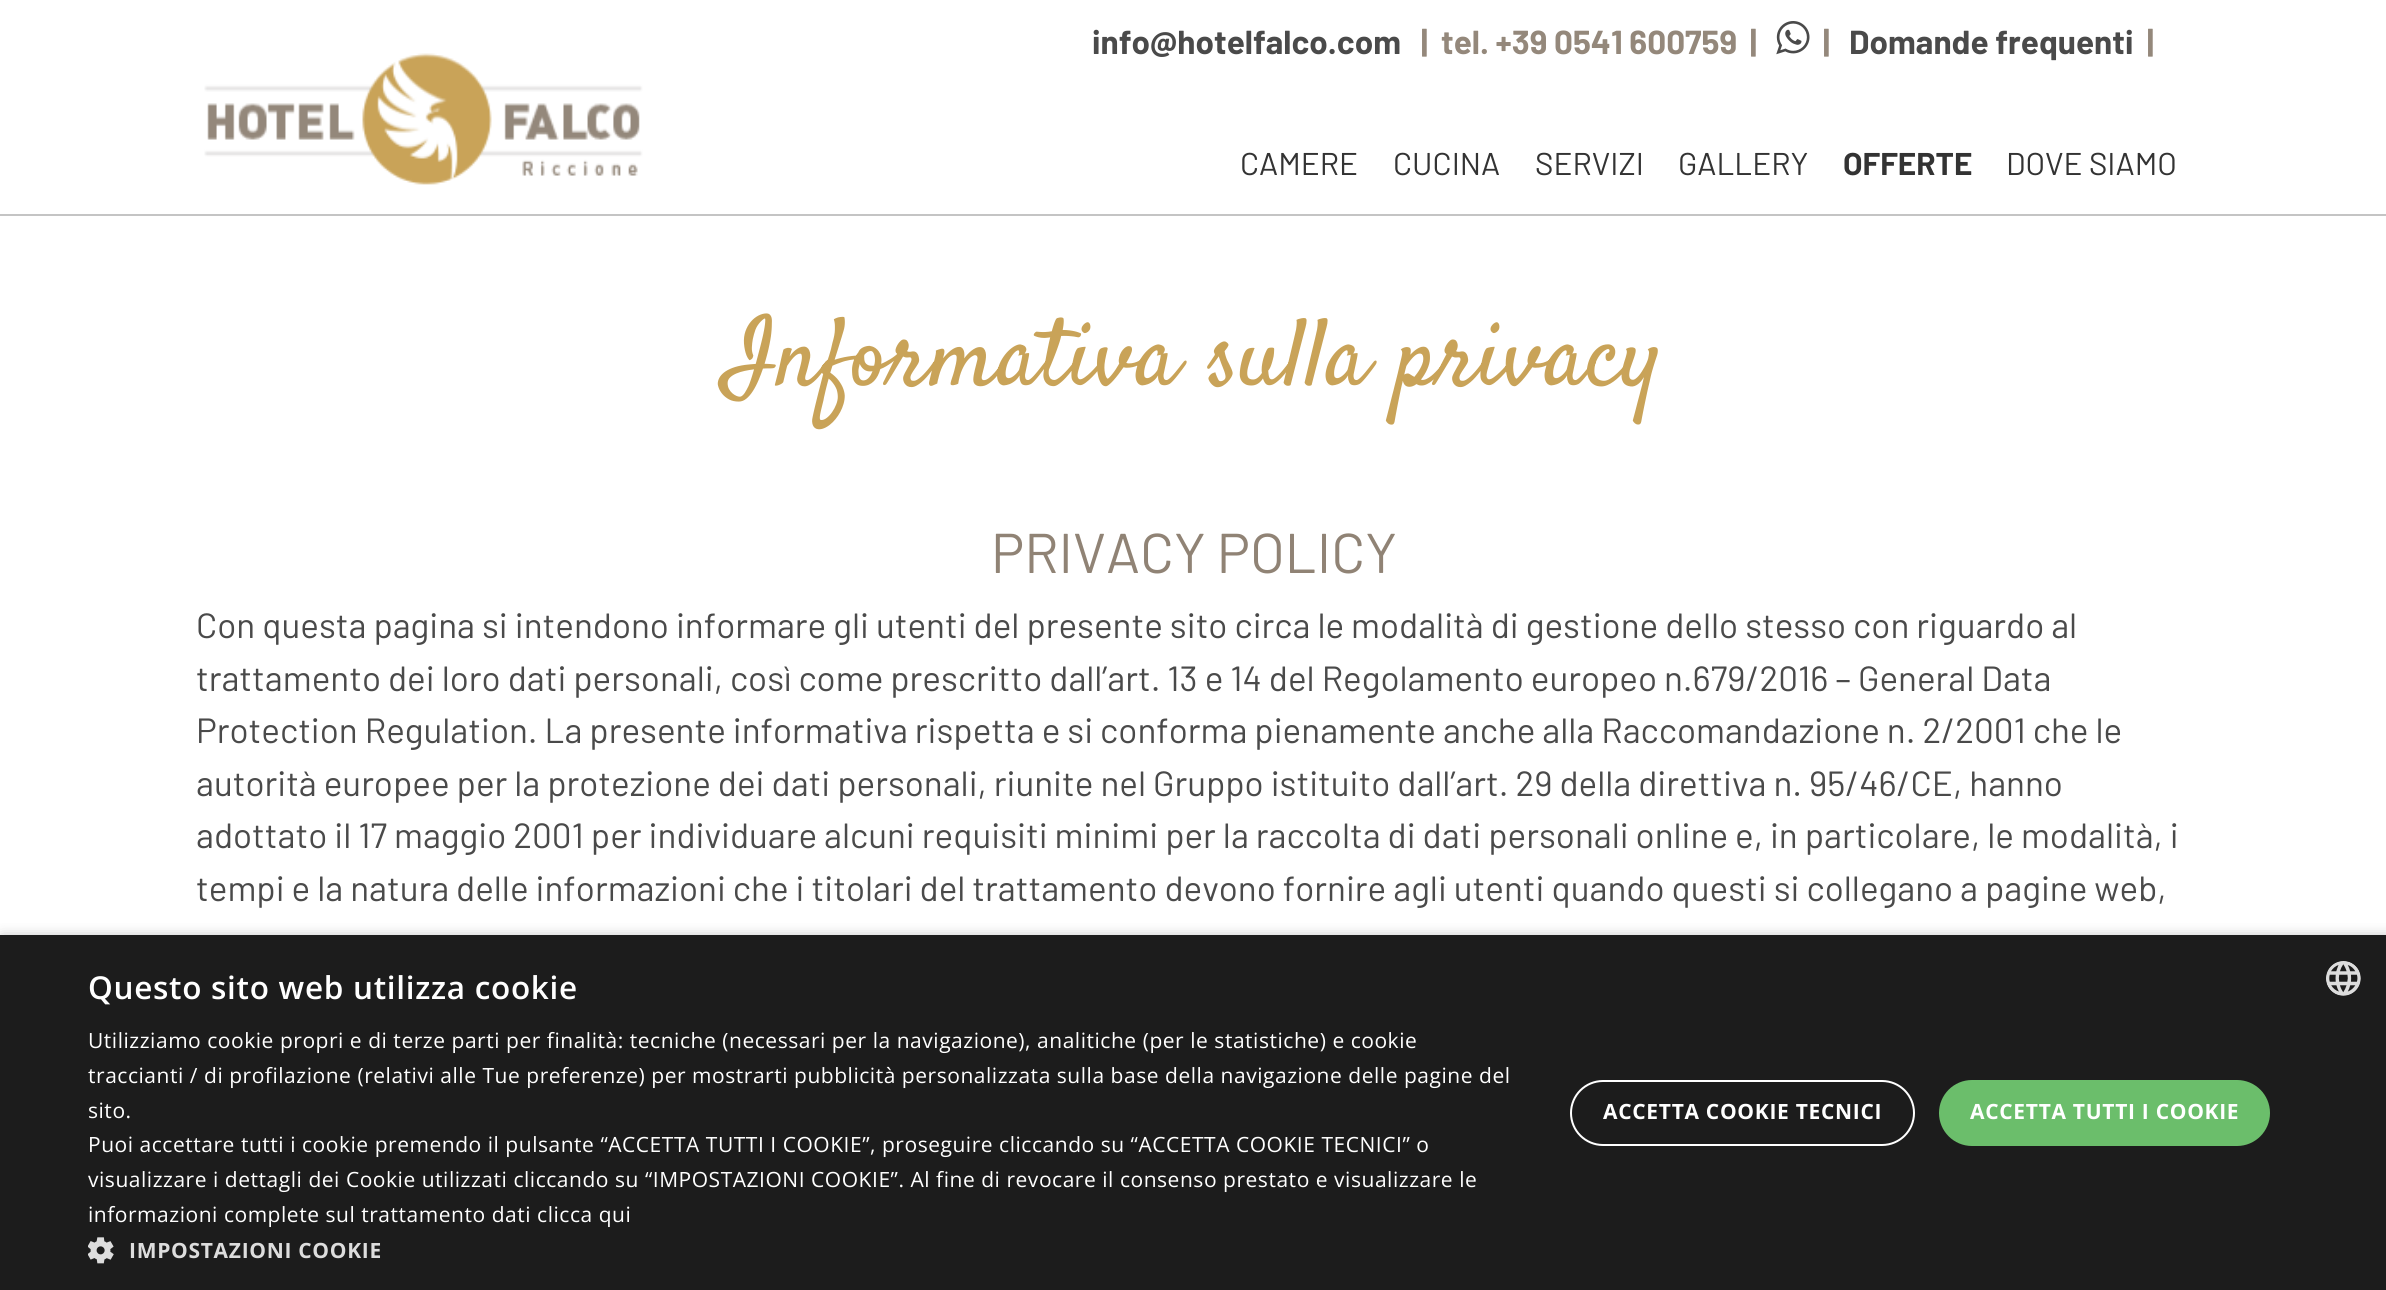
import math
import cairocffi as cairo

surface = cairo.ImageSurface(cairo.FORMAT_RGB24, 2386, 1290)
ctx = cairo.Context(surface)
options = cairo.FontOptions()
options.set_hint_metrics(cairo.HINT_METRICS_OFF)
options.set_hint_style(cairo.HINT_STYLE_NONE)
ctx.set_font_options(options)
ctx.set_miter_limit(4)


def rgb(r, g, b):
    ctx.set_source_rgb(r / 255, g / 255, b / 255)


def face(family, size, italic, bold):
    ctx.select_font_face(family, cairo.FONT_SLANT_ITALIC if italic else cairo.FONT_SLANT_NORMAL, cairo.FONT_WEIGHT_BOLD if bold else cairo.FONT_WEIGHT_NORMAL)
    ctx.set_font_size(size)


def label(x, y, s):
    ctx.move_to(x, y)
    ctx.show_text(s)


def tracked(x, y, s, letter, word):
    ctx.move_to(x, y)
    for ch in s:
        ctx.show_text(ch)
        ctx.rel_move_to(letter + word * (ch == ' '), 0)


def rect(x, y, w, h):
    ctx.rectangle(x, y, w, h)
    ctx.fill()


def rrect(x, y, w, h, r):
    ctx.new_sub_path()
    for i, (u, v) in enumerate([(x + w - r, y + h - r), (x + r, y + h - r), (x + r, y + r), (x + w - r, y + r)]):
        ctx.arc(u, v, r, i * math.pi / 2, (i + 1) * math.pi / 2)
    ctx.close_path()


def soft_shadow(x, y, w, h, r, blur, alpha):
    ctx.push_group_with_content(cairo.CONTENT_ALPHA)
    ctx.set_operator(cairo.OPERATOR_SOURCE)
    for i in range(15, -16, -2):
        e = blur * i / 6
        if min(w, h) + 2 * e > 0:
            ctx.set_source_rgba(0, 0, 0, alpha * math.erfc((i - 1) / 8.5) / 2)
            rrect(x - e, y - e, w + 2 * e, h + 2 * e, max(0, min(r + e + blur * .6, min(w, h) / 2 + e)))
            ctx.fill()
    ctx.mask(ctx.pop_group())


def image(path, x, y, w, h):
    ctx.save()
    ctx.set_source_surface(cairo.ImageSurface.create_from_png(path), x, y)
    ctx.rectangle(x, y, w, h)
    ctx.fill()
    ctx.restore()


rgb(255, 255, 255)
ctx.paint()
rgb(196, 196, 196)
rect(0, 214, 2386, 2)
image('image0.png', 204, 53, 439, 132)
face('Barlow', 33.25, 0, 1)
rgb(74, 74, 74)
label(1092, 54, 'info@hotelfalco.com')
rgb(148, 136, 123)
label(1421, 54, '|')
label(1441, 54, 'tel. +39 0541 600759')
label(1750, 54, '|')
image('image1.png', 1776, 21, 34, 34)
label(1823, 54, '|')
rgb(74, 74, 74)
label(1849, 54, 'Domande frequenti')
rgb(148, 136, 123)
label(2147, 54, '|')
face('Barlow', 31.5, 0, 0)
rgb(51, 51, 51)
label(1240, 175, 'CAMERE')
label(1393, 175, 'CUCINA')
label(1535, 175, 'SERVIZI')
label(1678, 175, 'GALLERY')
face('Barlow', 31.5, 0, 1)
label(1843, 175, 'OFFERTE')
face('Barlow', 31.5, 0, 0)
label(2006, 175, 'DOVE SIAMO')
face('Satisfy', 96.25, 0, 0)
rgb(201, 163, 88)
label(725, 384, 'Informativa sulla privacy')
face('Barlow', 56, 0, 0)
rgb(144, 131, 117)
label(991, 573, 'PRIVACY POLICY')
face('Barlow', 35, 0, 0)
rgb(74, 74, 74)
label(196, 638, 'Con questa pagina si intendono informare gli utenti del presente sito circa le modalità di gestione dello stesso con riguardo al')
label(196, 691, 'trattamento dei loro dati personali, così come prescritto dall’art. 13 e 14 del Regolamento europeo n.679/2016 – General Data')
label(196, 743, 'Protection Regulation. La presente informativa rispetta e si conforma pienamente anche alla Raccomandazione n. 2/2001 che le')
label(196, 796, 'autorità europee per la protezione dei dati personali, riunite nel Gruppo istituito dall’art. 29 della direttiva n. 95/46/CE, hanno')
label(196, 848, 'adottato il 17 maggio 2001 per individuare alcuni requisiti minimi per la raccolta di dati personali online e, in particolare, le modalità, i')
label(196, 901, 'tempi e la natura delle informazioni che i titolari del trattamento devono fornire agli utenti quando questi si collegano a pagine web,')
rgb(0, 0, 0)
soft_shadow(2, 938, 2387, 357, 0, 7, 0.35)
rgb(28, 28, 28)
rect(0, 935, 2386, 355)
face('Open Sans SemiBold', 31.5, 0, 0)
rgb(255, 255, 255)
tracked(88, 999, 'Questo sito web utilizza cookie', 0.7, 0)
face('Open Sans', 21, 0, 0)
tracked(88, 1048, 'Utilizziamo cookie propri e di terze parti per finalità: tecniche (necessari per la navigazione), analitiche (per le statistiche) e cookie', 0.53, 0)
tracked(88, 1083, 'traccianti / di profilazione (relativi alle Tue preferenze) per mostrarti pubblicità personalizzata sulla base della navigazione delle pagine del', 0.53, 0)
tracked(88, 1118, 'sito.', 0.53, 0)
tracked(88, 1152, 'Puoi accettare tutti i cookie premendo il pulsante “ACCETTA TUTTI I COOKIE”, proseguire cliccando su “ACCETTA COOKIE TECNICI” o', 0.53, 0)
tracked(88, 1187, 'visualizzare i dettagli dei Cookie utilizzati cliccando su “IMPOSTAZIONI COOKIE”. Al fine di revocare il consenso prestato e visualizzare le', 0.53, 0)
tracked(88, 1222, 'informazioni complete sul trattamento dati clicca qui', 0.53, 0)
image('image2.png', 88, 1237, 26, 27)
face('Open Sans', 21, 0, 1)
rgb(221, 221, 221)
tracked(129, 1258, 'IMPOSTAZIONI COOKIE', 0.7, 0)
rrect(1571, 1081, 343, 64, 32)
rgb(255, 255, 255)
ctx.stroke()
tracked(1603, 1119, 'ACCETTA COOKIE TECNICI', 0.7, 0)
rgb(107, 190, 107)
rrect(1939, 1080, 331, 66, 33)
ctx.fill()
rgb(255, 255, 255)
tracked(1970, 1119, 'ACCETTA TUTTI I COOKIE', 0.7, 0)
image('image3.png', 2326, 961, 35, 35)
surface.write_to_png('render.png')
